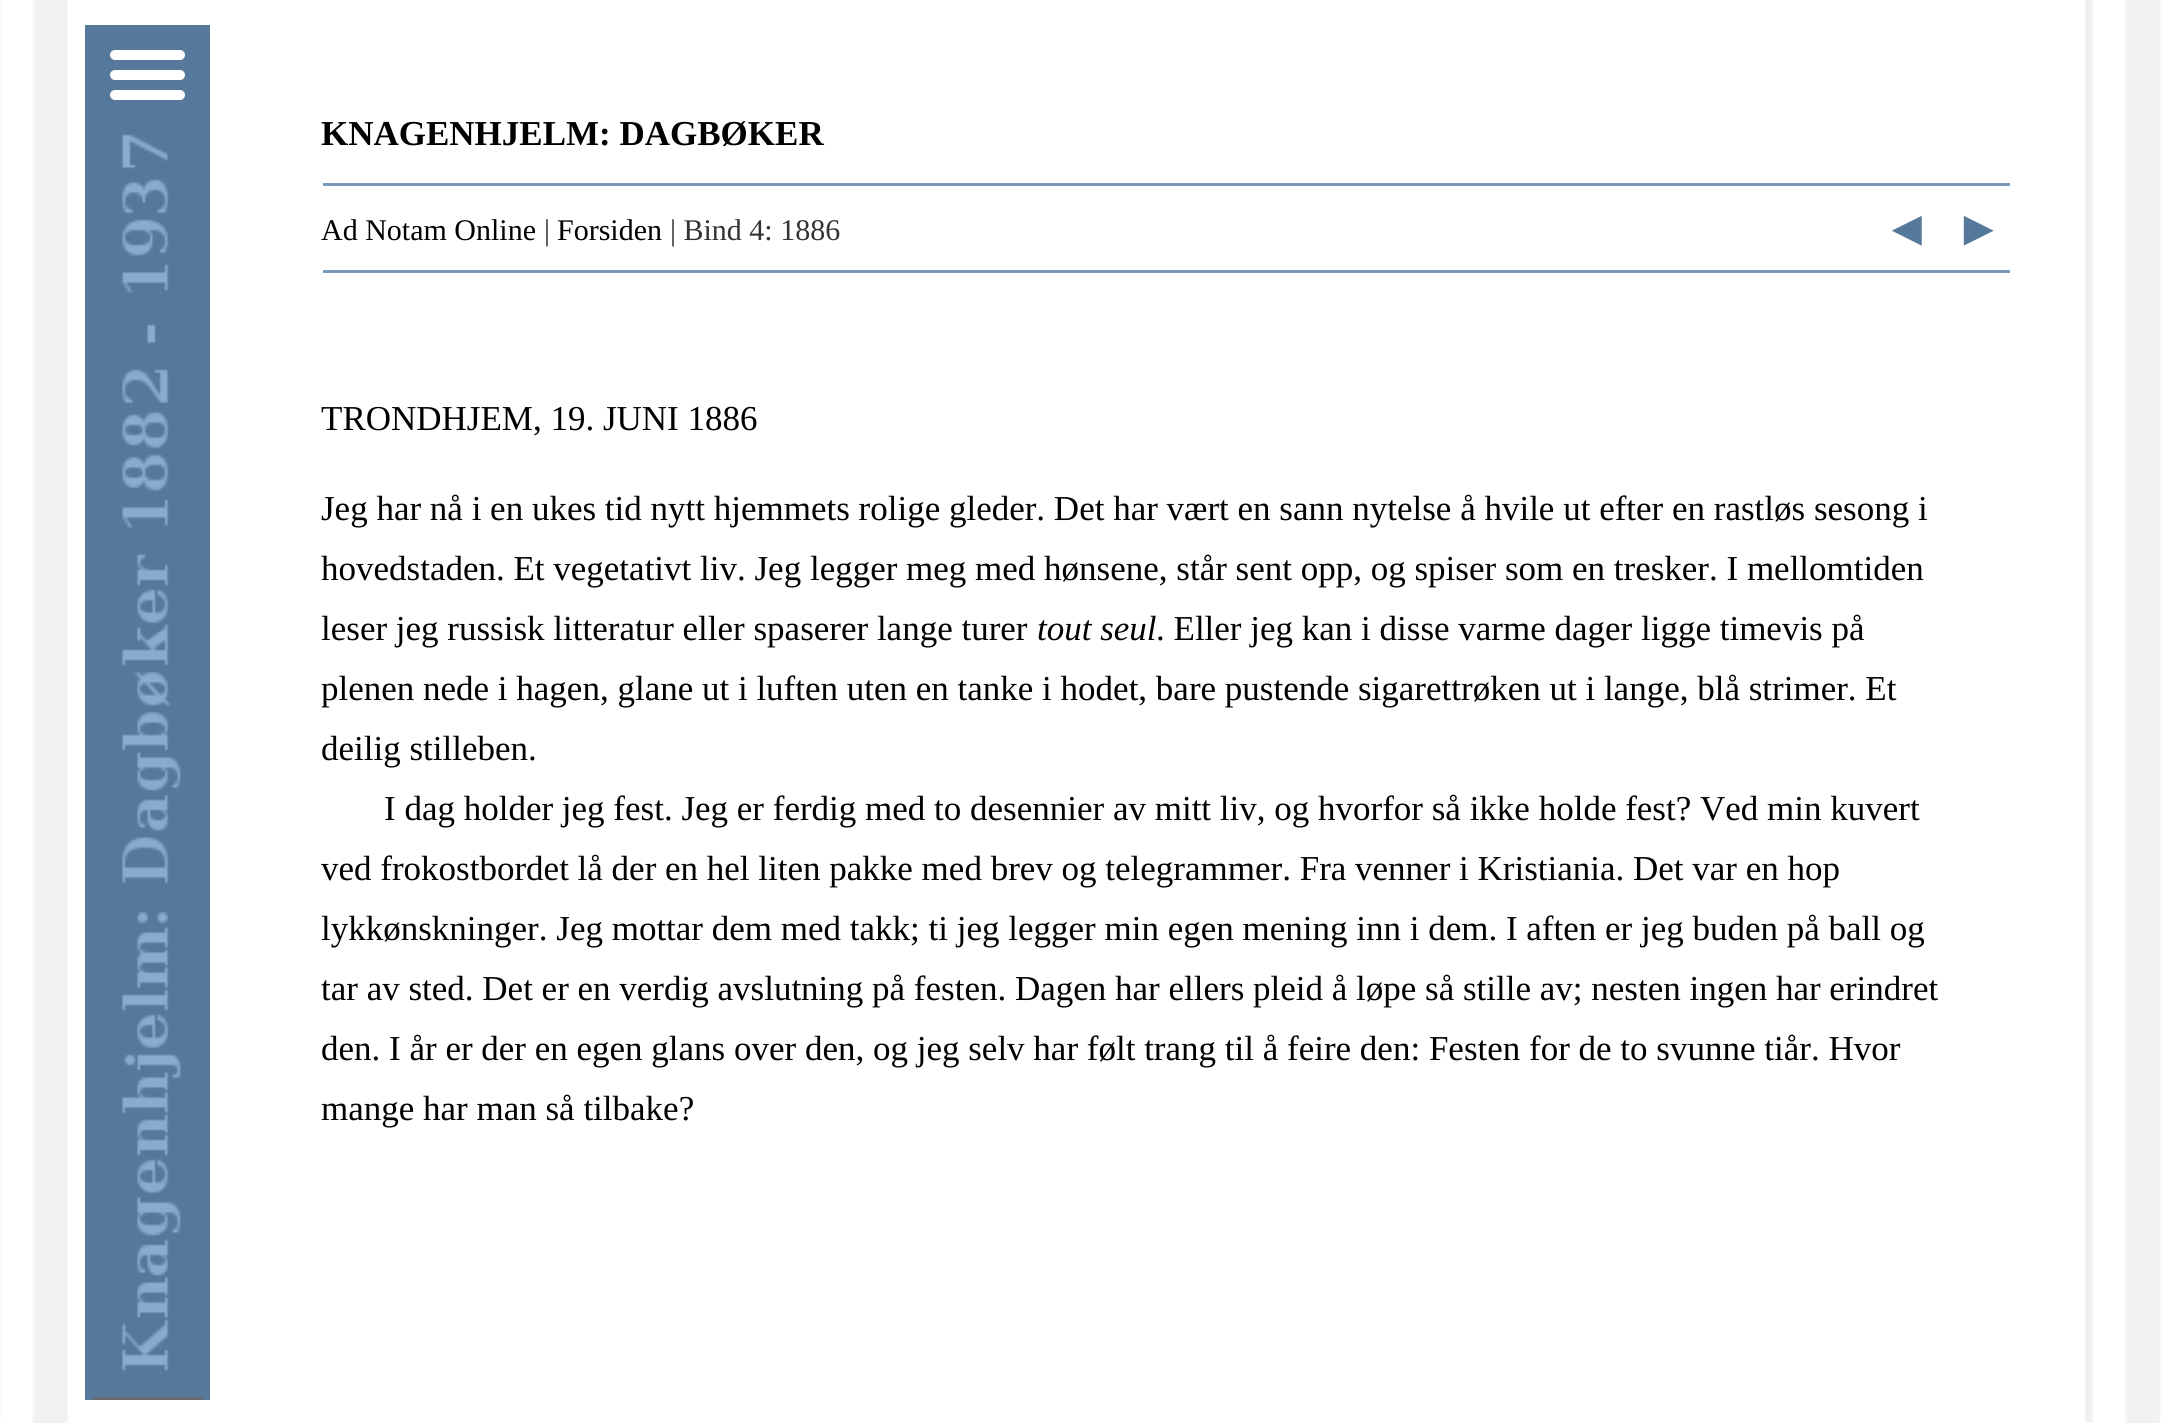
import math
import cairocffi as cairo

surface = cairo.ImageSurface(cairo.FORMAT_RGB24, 2167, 1423)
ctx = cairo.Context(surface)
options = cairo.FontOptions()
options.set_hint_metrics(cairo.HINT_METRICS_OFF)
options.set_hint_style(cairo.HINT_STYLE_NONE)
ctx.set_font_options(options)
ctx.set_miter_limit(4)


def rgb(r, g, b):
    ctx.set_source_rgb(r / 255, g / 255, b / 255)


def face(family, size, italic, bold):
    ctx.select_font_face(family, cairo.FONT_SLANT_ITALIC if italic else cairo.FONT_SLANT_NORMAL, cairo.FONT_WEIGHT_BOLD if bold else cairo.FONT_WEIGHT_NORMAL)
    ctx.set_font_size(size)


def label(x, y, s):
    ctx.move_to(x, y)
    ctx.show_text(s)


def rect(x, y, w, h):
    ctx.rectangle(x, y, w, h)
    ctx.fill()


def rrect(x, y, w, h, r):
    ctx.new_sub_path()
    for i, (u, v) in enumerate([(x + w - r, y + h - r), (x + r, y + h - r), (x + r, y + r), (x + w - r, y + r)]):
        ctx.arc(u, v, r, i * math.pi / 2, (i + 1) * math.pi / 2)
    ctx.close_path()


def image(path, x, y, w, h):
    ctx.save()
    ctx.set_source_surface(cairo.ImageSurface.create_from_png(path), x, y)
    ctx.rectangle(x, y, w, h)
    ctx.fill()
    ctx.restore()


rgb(255, 255, 255)
ctx.paint()
image('image0.png', 0, 0, 2161, 1423)
rgb(255, 255, 255)
rect(99, 0, 1986, 1423)
rgb(86, 120, 154)
rect(85, 25, 125, 1375)
image('image1.png', 92, 134, 111, 1266)
rgb(255, 255, 255)
rrect(110, 50, 75, 10, 5)
ctx.fill()
rrect(110, 70, 75, 10, 5)
ctx.fill()
rrect(110, 90, 75, 10, 5)
ctx.fill()
face('Liberation Serif', 35, 0, 1)
rgb(0, 0, 0)
label(321, 145, 'KNAGENHJELM: DAGBØKER')
rgb(120, 154, 188)
rect(323, 183, 1687, 3)
face('Liberation Serif', 30, 0, 0)
rgb(0, 0, 0)
label(321, 240, 'Ad Notam Online')
rgb(51, 51, 51)
label(544, 240, '|')
rgb(0, 0, 0)
label(557, 240, 'Forsiden')
rgb(51, 51, 51)
label(670, 240, '| Bind 4: 1886')
face('Liberation Serif', 50, 0, 0)
rgb(86, 120, 154)
label(1882, 245, '◄')
label(1954, 245, '►')
rgb(120, 154, 188)
rect(323, 270, 1687, 3)
face('Liberation Serif', 35, 0, 0)
rgb(0, 0, 0)
label(321, 430, 'TRONDHJEM, 19. JUNI 1886')
label(321, 520, 'Jeg har nå i en ukes tid nytt hjemmets rolige gleder. Det har vært en sann nytelse å hvile ut efter en rastløs sesong i')
label(321, 580, 'hovedstaden. Et vegetativt liv. Jeg legger meg med hønsene, står sent opp, og spiser som en tresker. I mellomtiden')
label(321, 640, 'leser jeg russisk litteratur eller spaserer lange turer')
face('Liberation Serif', 35, 1, 0)
label(1037, 640, 'tout seul')
face('Liberation Serif', 35, 0, 0)
label(1156, 640, '. Eller jeg kan i disse varme dager ligge timevis på')
label(321, 700, 'plenen nede i hagen, glane ut i luften uten en tanke i hodet, bare pustende sigarettrøken ut i lange, blå strimer. Et')
label(321, 760, 'deilig stilleben.')
label(384, 820, 'I dag holder jeg fest. Jeg er ferdig med to desennier av mitt liv, og hvorfor så ikke holde fest? Ved min kuvert')
label(321, 880, 'ved frokostbordet lå der en hel liten pakke med brev og telegrammer. Fra venner i Kristiania. Det var en hop')
label(321, 940, 'lykkønskninger. Jeg mottar dem med takk; ti jeg legger min egen mening inn i dem. I aften er jeg buden på ball og')
label(321, 1000, 'tar av sted. Det er en verdig avslutning på festen. Dagen har ellers pleid å løpe så stille av; nesten ingen har erindret')
label(321, 1060, 'den. I år er der en egen glans over den, og jeg selv har følt trang til å feire den: Festen for de to svunne tiår. Hvor')
label(321, 1120, 'mange har man så tilbake?')
surface.write_to_png('render.png')
